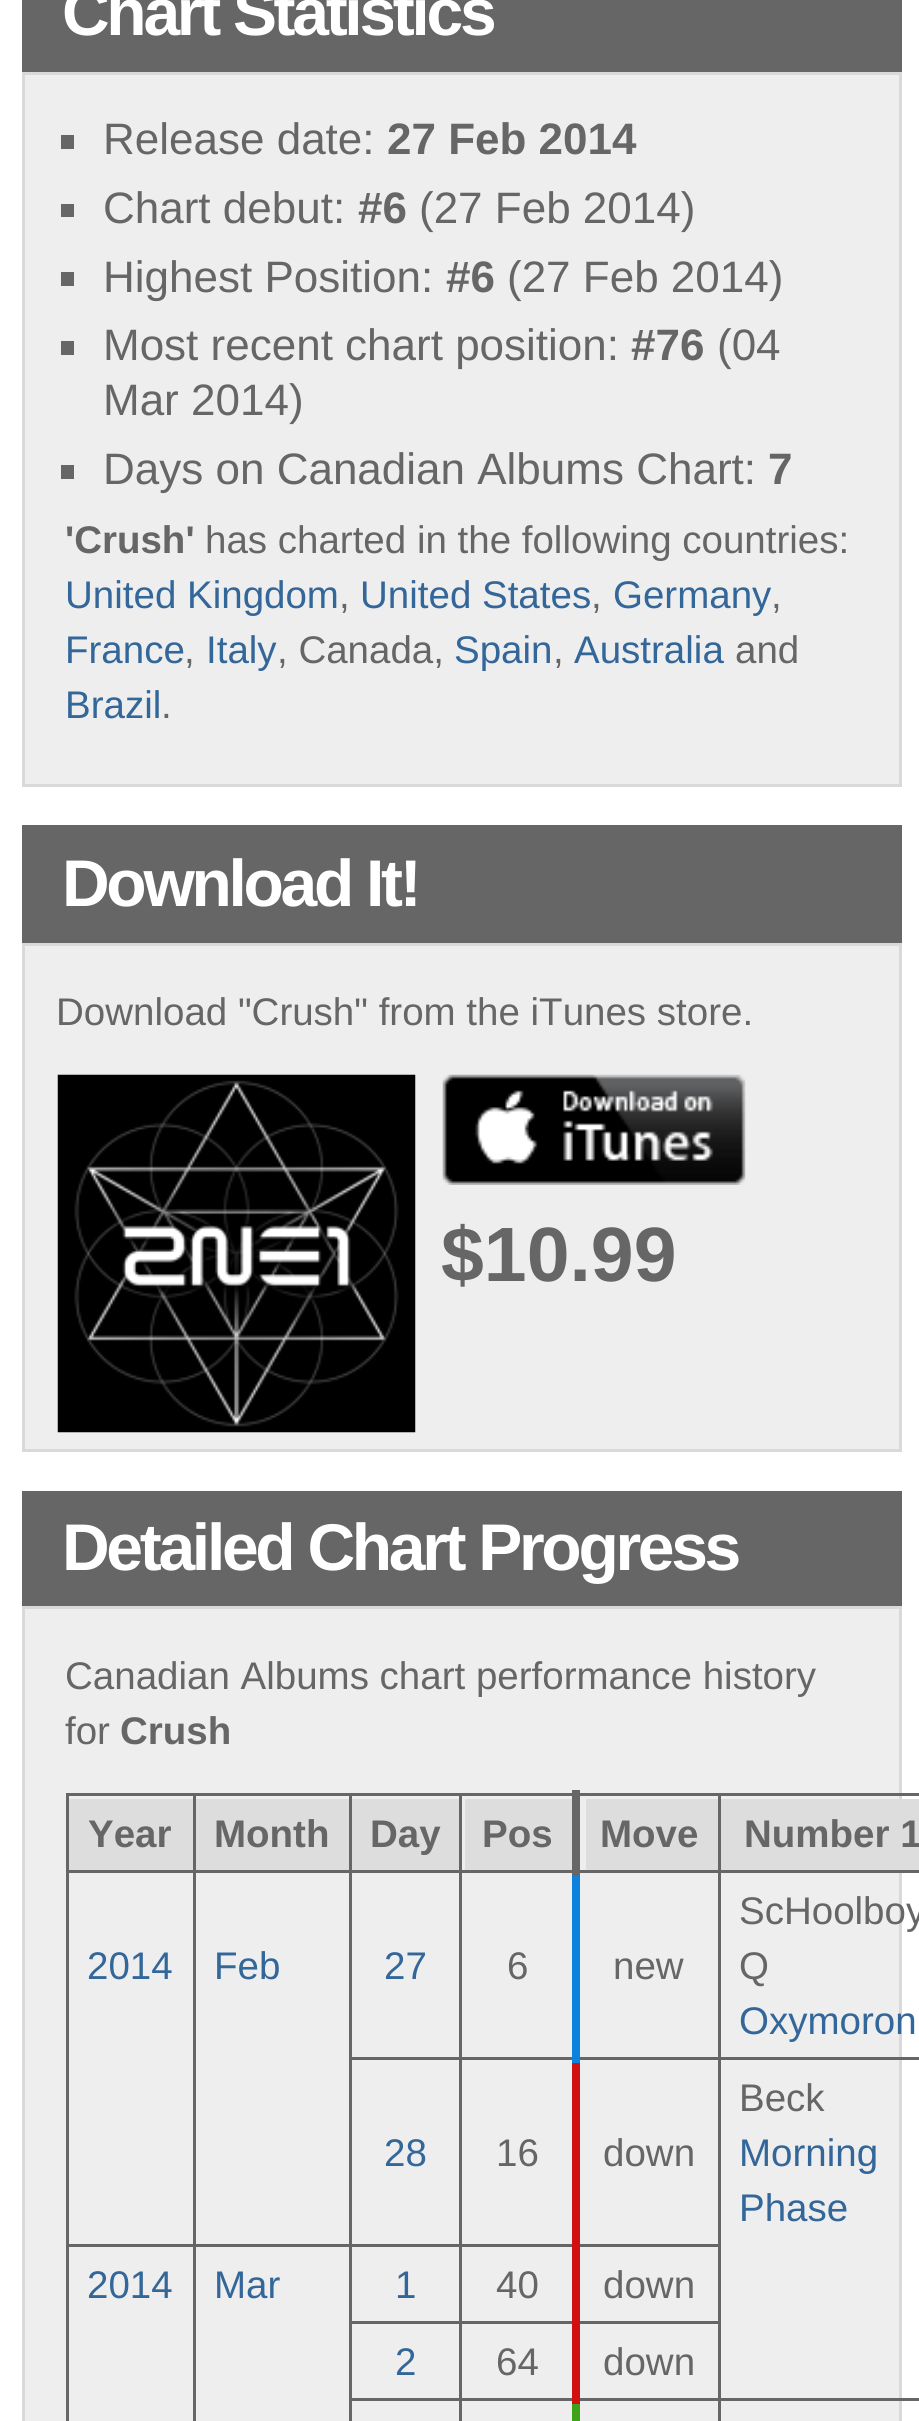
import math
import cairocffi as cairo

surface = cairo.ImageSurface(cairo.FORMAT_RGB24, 919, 2421)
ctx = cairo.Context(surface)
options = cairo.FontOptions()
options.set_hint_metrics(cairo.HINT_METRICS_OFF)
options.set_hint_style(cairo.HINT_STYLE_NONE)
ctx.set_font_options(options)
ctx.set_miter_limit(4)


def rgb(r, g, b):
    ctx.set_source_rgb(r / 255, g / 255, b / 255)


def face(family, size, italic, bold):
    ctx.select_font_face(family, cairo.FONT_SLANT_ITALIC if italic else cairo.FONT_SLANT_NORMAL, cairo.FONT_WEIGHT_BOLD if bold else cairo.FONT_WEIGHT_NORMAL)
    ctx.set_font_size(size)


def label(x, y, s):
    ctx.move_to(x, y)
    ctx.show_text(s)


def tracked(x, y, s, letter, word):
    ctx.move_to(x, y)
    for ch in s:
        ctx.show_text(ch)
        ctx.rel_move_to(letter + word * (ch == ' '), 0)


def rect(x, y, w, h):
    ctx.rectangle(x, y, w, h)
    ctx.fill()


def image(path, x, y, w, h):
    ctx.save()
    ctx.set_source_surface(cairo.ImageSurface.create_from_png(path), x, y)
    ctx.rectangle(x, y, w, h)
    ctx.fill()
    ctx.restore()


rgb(255, 255, 255)
ctx.paint()
rgb(102, 102, 102)
rect(22, 0, 880, 72)
face('Liberation Sans', 66, 0, 1)
rgb(255, 255, 255)
tracked(62, 35, 'Chart Statistics', -3.3, 0)
rgb(238, 238, 238)
ctx.rectangle(23.5, 73.5, 877, 712)
ctx.fill_preserve()
rgb(216, 217, 218)
ctx.set_line_width(3)
ctx.stroke()
rgb(102, 102, 102)
rect(61, 135, 13, 14)
face('Liberation Sans', 44, 0, 0)
label(103, 154, 'Release date:')
face('Liberation Sans', 44, 0, 1)
label(387, 154, '27 Feb 2014')
rect(61, 204, 13, 13)
face('Liberation Sans', 44, 0, 0)
label(103, 223, 'Chart debut:')
face('Liberation Sans', 44, 0, 1)
label(358, 223, '#6')
face('Liberation Sans', 44, 0, 0)
label(419, 223, '(27 Feb 2014)')
rect(61, 272, 13, 14)
label(103, 292, 'Highest Position:')
face('Liberation Sans', 44, 0, 1)
label(446, 292, '#6')
face('Liberation Sans', 44, 0, 0)
label(507, 292, '(27 Feb 2014)')
rect(61, 341, 13, 14)
label(103, 360, 'Most recent chart position:')
face('Liberation Sans', 44, 0, 1)
label(631, 360, '#76')
face('Liberation Sans', 44, 0, 0)
label(717, 360, '(04')
label(103, 415, 'Mar 2014)')
rect(61, 465, 13, 14)
label(103, 484, 'Days on Canadian Albums Chart:')
face('Liberation Sans', 44, 0, 1)
label(768, 484, '7')
face('Liberation Sans', 38.5, 0, 1)
label(65, 553, '\'Crush\'')
face('Liberation Sans', 38.5, 0, 0)
label(205, 553, 'has charted in the following countries:')
rgb(51, 102, 153)
label(65, 608, 'United Kingdom')
rgb(102, 102, 102)
label(339, 608, ',')
rgb(51, 102, 153)
label(360, 608, 'United States')
rgb(102, 102, 102)
label(591, 608, ',')
rgb(51, 102, 153)
label(613, 608, 'Germany')
rgb(102, 102, 102)
label(771, 608, ',')
rgb(51, 102, 153)
label(65, 663, 'France')
rgb(102, 102, 102)
label(184, 663, ',')
rgb(51, 102, 153)
label(206, 663, 'Italy')
rgb(102, 102, 102)
label(277, 663, ', Canada,')
rgb(51, 102, 153)
label(454, 663, 'Spain')
rgb(102, 102, 102)
label(553, 663, ',')
rgb(51, 102, 153)
label(574, 663, 'Australia')
rgb(102, 102, 102)
label(735, 663, 'and')
rgb(51, 102, 153)
label(65, 718, 'Brazil')
rgb(102, 102, 102)
label(161, 718, '.')
rect(22, 825, 880, 118)
face('Liberation Sans', 66, 0, 1)
rgb(255, 255, 255)
tracked(62, 906, 'Download It!', -3.3, 0)
rgb(238, 238, 238)
ctx.rectangle(23.5, 944.5, 877, 506)
ctx.fill_preserve()
rgb(216, 217, 218)
ctx.stroke()
face('Liberation Sans', 38.5, 0, 0)
rgb(102, 102, 102)
label(56, 1025, 'Download "Crush" from the iTunes store.')
image('image0.png', 57, 1074, 359, 359)
image('image1.png', 442, 1074, 304, 111)
face('Liberation Sans', 77, 0, 1)
label(441, 1281, '$10.99')
rect(22, 1491, 880, 115)
face('Liberation Sans', 66, 0, 1)
rgb(255, 255, 255)
tracked(62, 1570, 'Detailed Chart Progress', -3.3, 0)
rgb(238, 238, 238)
ctx.rectangle(23.5, 1607.5, 877, 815)
ctx.fill_preserve()
rgb(216, 217, 218)
ctx.stroke()
face('Liberation Sans', 38.5, 0, 0)
rgb(102, 102, 102)
label(65, 1689, 'Canadian Albums chart performance history')
label(65, 1744, 'for')
face('Liberation Sans', 38.5, 0, 1)
label(120, 1744, 'Crush')
rgb(221, 221, 221)
rect(69, 1799, 124, 71)
rgb(102, 102, 102)
rect(718, 1793, 201, 3)
rect(718, 1870, 201, 3)
rect(718, 2057, 201, 3)
rect(718, 2398, 201, 3)
rect(718, 2398, 3, 23)
rect(459, 2398, 262, 3)
rect(718, 2321, 3, 80)
rect(459, 2321, 262, 3)
rect(718, 2244, 3, 80)
rect(459, 2244, 262, 3)
rect(718, 2057, 3, 190)
rect(459, 2057, 262, 3)
rect(718, 1870, 3, 190)
rect(459, 1870, 262, 3)
rect(718, 1793, 3, 80)
rect(459, 1793, 262, 3)
rect(459, 2398, 3, 23)
rect(349, 2398, 113, 3)
rect(459, 2321, 3, 80)
rect(349, 2321, 113, 3)
rect(459, 2244, 3, 80)
rect(349, 2244, 113, 3)
rect(459, 2057, 3, 190)
rect(349, 2057, 113, 3)
rect(459, 1870, 3, 190)
rect(349, 1870, 113, 3)
rect(459, 1793, 3, 80)
rect(349, 1793, 113, 3)
rect(349, 2398, 3, 23)
rect(349, 2321, 3, 80)
rect(349, 2244, 3, 80)
rect(193, 2244, 159, 3)
rect(349, 2057, 3, 190)
rect(349, 1870, 3, 190)
rect(193, 1870, 159, 3)
rect(349, 1793, 3, 80)
rect(193, 1793, 159, 3)
rect(193, 2321, 3, 100)
rect(193, 2244, 3, 80)
rect(66, 2244, 129, 3)
rect(193, 2057, 3, 190)
rect(193, 1870, 3, 190)
rect(66, 1870, 129, 3)
rect(193, 1793, 3, 80)
rect(66, 1793, 129, 3)
rect(66, 2321, 3, 100)
rect(66, 2057, 3, 267)
rect(66, 1870, 3, 190)
rect(66, 1793, 3, 80)
label(88, 1847, 'Year')
rgb(221, 221, 221)
rect(196, 1799, 153, 71)
rgb(102, 102, 102)
label(214, 1847, 'Month')
rgb(221, 221, 221)
rect(352, 1799, 107, 71)
rgb(102, 102, 102)
label(370, 1847, 'Day')
rgb(221, 221, 221)
rect(465, 1799, 107, 71)
rgb(102, 102, 102)
label(482, 1847, 'Pos')
rgb(221, 221, 221)
rect(586, 1799, 132, 71)
rgb(102, 102, 102)
rect(572, 1790, 8, 86)
label(600, 1847, 'Move')
rgb(221, 221, 221)
rect(721, 1799, 198, 71)
rgb(102, 102, 102)
label(744, 1847, 'Number 1')
face('Liberation Sans', 38.5, 0, 0)
rgb(51, 102, 153)
label(87, 1979, '2014')
label(214, 1979, 'Feb')
label(384, 1979, '27')
rgb(102, 102, 102)
label(507, 1979, '6')
rgb(11, 131, 222)
rect(572, 1876, 8, 187)
rgb(102, 102, 102)
label(613, 1979, 'new')
label(739, 1924, 'ScHoolboy')
label(739, 1979, 'Q')
rgb(51, 102, 153)
label(739, 2034, 'Oxymoron')
label(384, 2166, '28')
rgb(102, 102, 102)
label(496, 2166, '16')
label(603, 2166, 'down')
label(739, 2111, 'Beck')
rgb(51, 102, 153)
label(739, 2166, 'Morning')
label(739, 2221, 'Phase')
label(87, 2298, '2014')
label(214, 2298, 'Mar')
label(395, 2298, '1')
rgb(102, 102, 102)
label(496, 2298, '40')
label(603, 2298, 'down')
rgb(63, 162, 25)
rect(572, 2404, 8, 17)
rgb(51, 102, 153)
label(395, 2375, '2')
rgb(102, 102, 102)
label(496, 2375, '64')
rgb(208, 17, 17)
rect(572, 2063, 8, 341)
rgb(102, 102, 102)
label(603, 2375, 'down')
surface.write_to_png('render.png')
